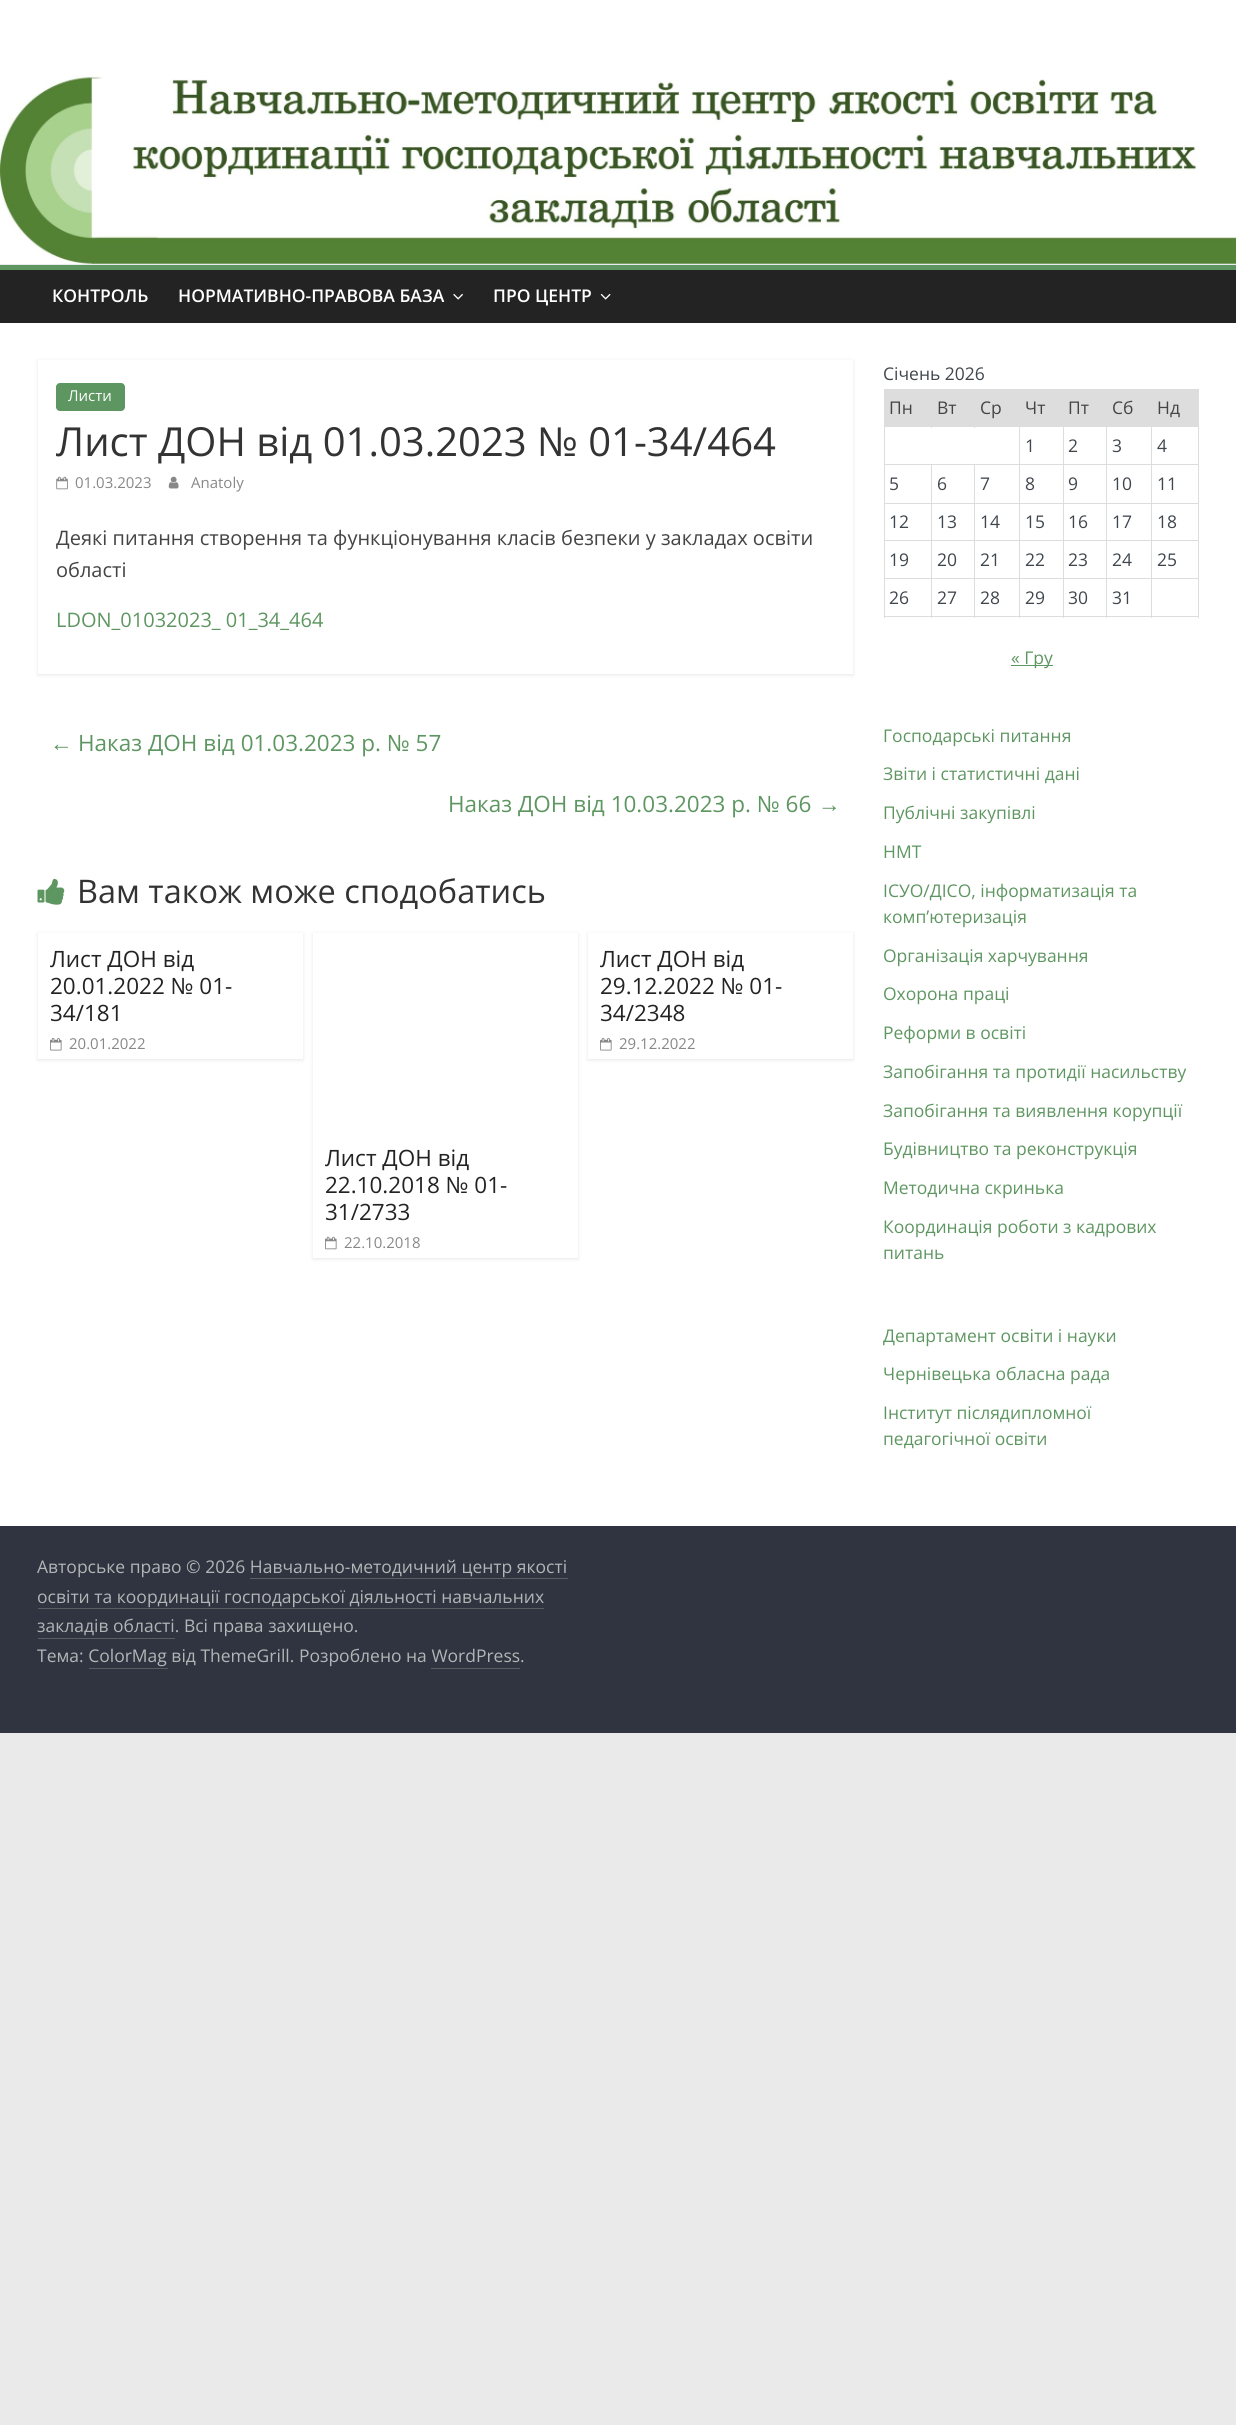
import math
import cairocffi as cairo

surface = cairo.ImageSurface(cairo.FORMAT_RGB24, 1236, 2425)
ctx = cairo.Context(surface)
options = cairo.FontOptions()
options.set_hint_metrics(cairo.HINT_METRICS_OFF)
options.set_hint_style(cairo.HINT_STYLE_NONE)
ctx.set_font_options(options)
ctx.set_miter_limit(4)


def rgb(r, g, b):
    ctx.set_source_rgb(r / 255, g / 255, b / 255)


def face(family, size, italic, bold):
    ctx.select_font_face(family, cairo.FONT_SLANT_ITALIC if italic else cairo.FONT_SLANT_NORMAL, cairo.FONT_WEIGHT_BOLD if bold else cairo.FONT_WEIGHT_NORMAL)
    ctx.set_font_size(size)


def label(x, y, s):
    ctx.move_to(x, y)
    ctx.show_text(s)


def rect(x, y, w, h):
    ctx.rectangle(x, y, w, h)
    ctx.fill()


def rrect(x, y, w, h, r):
    ctx.new_sub_path()
    for i, (u, v) in enumerate([(x + w - r, y + h - r), (x + r, y + h - r), (x + r, y + r), (x + w - r, y + r)]):
        ctx.arc(u, v, r, i * math.pi / 2, (i + 1) * math.pi / 2)
    ctx.close_path()


def soft_shadow(x, y, w, h, r, blur, alpha):
    ctx.push_group_with_content(cairo.CONTENT_ALPHA)
    ctx.set_operator(cairo.OPERATOR_SOURCE)
    for i in range(15, -16, -2):
        e = blur * i / 6
        if min(w, h) + 2 * e > 0:
            ctx.set_source_rgba(0, 0, 0, alpha * math.erfc((i - 1) / 8.5) / 2)
            rrect(x - e, y - e, w + 2 * e, h + 2 * e, max(0, min(r + e + blur * .6, min(w, h) / 2 + e)))
            ctx.fill()
    ctx.mask(ctx.pop_group())


def image(path, x, y, w, h):
    ctx.save()
    ctx.set_source_surface(cairo.ImageSurface.create_from_png(path), x, y)
    ctx.rectangle(x, y, w, h)
    ctx.fill()
    ctx.restore()


rgb(234, 234, 234)
ctx.paint()
rgb(255, 255, 255)
rect(0, 0, 1236, 264)
image('image0.png', 0, 75, 1236, 189)
rgb(35, 35, 35)
rect(0, 270, 1236, 53)
rgb(94, 150, 97)
rect(0, 265, 1236, 5)
face('Open Sans SemiBold', 17.5, 0, 0)
rgb(255, 255, 255)
label(52, 302, 'КОНТРОЛЬ')
label(178, 302, 'НОРМАТИВНО-ПРАВОВА БАЗА')
image('image1.png', 453, 293, 10, 7)
label(493, 302, 'ПРО ЦЕНТР')
image('image2.png', 600, 293, 11, 7)
rect(0, 323, 1236, 1203)
ctx.save()
ctx.set_fill_rule(cairo.FILL_RULE_EVEN_ODD)
ctx.new_path()
ctx.move_to(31, 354)
ctx.line_to(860, 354)
ctx.line_to(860, 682)
ctx.line_to(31, 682)
ctx.close_path()
ctx.move_to(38, 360)
ctx.line_to(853, 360)
ctx.line_to(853, 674)
ctx.line_to(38, 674)
ctx.close_path()
ctx.clip()
rgb(0, 0, 0)
soft_shadow(38, 361, 815, 314, 0, 2, 0.1)
ctx.restore()
rgb(94, 150, 97)
rrect(56, 383, 69, 28, 4)
ctx.fill()
face('Open Sans', 15, 0, 0)
rgb(255, 255, 255)
label(68, 401, 'Листи')
face('Open Sans', 40, 0, 0)
rgb(51, 51, 51)
label(56, 456, 'Лист ДОН від 01.03.2023 № 01-34/464')
image('image3.png', 56, 476, 12, 14)
face('Open Sans', 15, 0, 0)
rgb(136, 136, 136)
label(75, 488, '01.03.2023')
image('image4.png', 168, 476, 11, 13)
label(191, 488, 'Anatoly')
face('Open Sans', 20, 0, 0)
rgb(68, 68, 68)
label(56, 545, 'Деякі питання створення та функціонування класів безпеки у закладах освіти')
label(56, 577, 'області')
rgb(94, 150, 97)
label(56, 627, 'LDON_01032023_ 01_34_464')
face('Liberation Serif', 22.5, 0, 0)
label(50, 751, '←')
face('Open Sans', 22.5, 0, 0)
label(78, 751, 'Наказ ДОН від 01.03.2023 р. № 57')
label(448, 812, 'Наказ ДОН від 10.03.2023 р. № 66')
face('Liberation Serif', 22.5, 0, 0)
label(818, 812, '→')
image('image5.png', 37, 878, 28, 27)
face('Open Sans', 32.5, 0, 0)
rgb(51, 51, 51)
label(77, 903, 'Вам також може сподобатись')
ctx.save()
ctx.set_fill_rule(cairo.FILL_RULE_EVEN_ODD)
ctx.new_path()
ctx.move_to(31, 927)
ctx.line_to(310, 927)
ctx.line_to(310, 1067)
ctx.line_to(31, 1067)
ctx.close_path()
ctx.move_to(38, 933)
ctx.line_to(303, 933)
ctx.line_to(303, 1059)
ctx.line_to(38, 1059)
ctx.close_path()
ctx.clip()
rgb(0, 0, 0)
soft_shadow(38, 934, 265, 126, 0, 2, 0.1)
ctx.restore()
face('Open Sans', 22.5, 0, 0)
rgb(35, 35, 35)
label(50, 967, 'Лист ДОН від')
label(50, 994, '20.01.2022 № 01-')
label(50, 1021, '34/181')
image('image6.png', 50, 1038, 12, 13)
face('Open Sans', 15, 0, 0)
rgb(136, 136, 136)
label(69, 1049, '20.01.2022')
ctx.save()
ctx.set_fill_rule(cairo.FILL_RULE_EVEN_ODD)
ctx.new_path()
ctx.move_to(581, 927)
ctx.line_to(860, 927)
ctx.line_to(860, 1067)
ctx.line_to(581, 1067)
ctx.close_path()
ctx.move_to(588, 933)
ctx.line_to(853, 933)
ctx.line_to(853, 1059)
ctx.line_to(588, 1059)
ctx.close_path()
ctx.clip()
rgb(0, 0, 0)
soft_shadow(588, 934, 265, 126, 0, 2, 0.1)
ctx.restore()
face('Open Sans', 22.5, 0, 0)
rgb(35, 35, 35)
label(600, 967, 'Лист ДОН від')
label(600, 994, '29.12.2022 № 01-')
label(600, 1021, '34/2348')
image('image6.png', 600, 1038, 12, 13)
face('Open Sans', 15, 0, 0)
rgb(136, 136, 136)
label(619, 1049, '29.12.2022')
ctx.save()
ctx.set_fill_rule(cairo.FILL_RULE_EVEN_ODD)
ctx.new_path()
ctx.move_to(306, 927)
ctx.line_to(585, 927)
ctx.line_to(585, 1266)
ctx.line_to(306, 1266)
ctx.close_path()
ctx.move_to(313, 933)
ctx.line_to(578, 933)
ctx.line_to(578, 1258)
ctx.line_to(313, 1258)
ctx.close_path()
ctx.clip()
rgb(0, 0, 0)
soft_shadow(313, 934, 265, 325, 0, 2, 0.1)
ctx.restore()
face('Open Sans', 22.5, 0, 0)
rgb(35, 35, 35)
label(325, 1166, 'Лист ДОН від')
label(325, 1193, '22.10.2018 № 01-')
label(325, 1220, '31/2733')
image('image7.png', 325, 1236, 12, 14)
face('Open Sans', 15, 0, 0)
rgb(136, 136, 136)
label(344, 1248, '22.10.2018')
face('Open Sans', 17.5, 0, 0)
rgb(64, 70, 77)
label(883, 380, 'Січень 2026')
rgb(221, 221, 221)
rect(884, 389, 90, 37)
rgb(68, 68, 68)
label(889, 414, 'Пн')
rgb(221, 221, 221)
rect(931, 427, 1, 1)
rgb(68, 68, 68)
label(937, 414, 'Вт')
rgb(221, 221, 221)
rect(975, 389, 224, 37)
rect(1151, 426, 48, 1)
rect(1151, 464, 48, 1)
rect(1151, 503, 48, 1)
rect(1151, 540, 48, 1)
rect(1151, 578, 48, 1)
rect(1198, 578, 1, 40)
rect(1151, 616, 48, 1)
rect(1151, 578, 1, 40)
rect(1106, 578, 47, 1)
rect(1151, 540, 1, 39)
rect(1106, 540, 47, 1)
rect(1151, 503, 1, 38)
rect(1106, 503, 47, 1)
rect(1151, 464, 1, 40)
rect(1106, 464, 47, 1)
rect(1151, 426, 1, 39)
rect(1106, 426, 47, 1)
rect(1106, 616, 47, 1)
rect(1106, 578, 1, 40)
rect(1063, 578, 45, 1)
rect(1106, 540, 1, 39)
rect(1063, 540, 45, 1)
rect(1106, 503, 1, 38)
rect(1063, 503, 45, 1)
rect(1106, 464, 1, 40)
rect(1063, 464, 45, 1)
rect(1106, 426, 1, 39)
rect(1063, 426, 45, 1)
rect(1063, 616, 45, 1)
rect(1063, 578, 1, 40)
rect(1019, 578, 45, 1)
rect(1063, 540, 1, 39)
rect(1019, 540, 45, 1)
rect(1063, 503, 1, 38)
rect(1019, 503, 45, 1)
rect(1063, 464, 1, 40)
rect(1019, 464, 45, 1)
rect(1063, 426, 1, 39)
rect(1019, 426, 45, 1)
rect(1019, 616, 45, 1)
rect(1019, 578, 1, 40)
rect(974, 578, 46, 1)
rect(1019, 540, 1, 39)
rect(974, 540, 46, 1)
rect(1019, 503, 1, 38)
rect(974, 503, 46, 1)
rect(1019, 464, 1, 40)
rect(974, 464, 46, 1)
rect(1019, 426, 1, 39)
rect(884, 426, 136, 1)
rect(974, 389, 1, 39)
rgb(68, 68, 68)
label(980, 414, 'Ср')
label(1025, 414, 'Чт')
label(1068, 414, 'Пт')
label(1112, 414, 'Сб')
label(1157, 414, 'Нд')
rgb(221, 221, 221)
rect(974, 616, 46, 1)
rect(974, 578, 1, 40)
rect(931, 578, 44, 1)
rect(974, 540, 1, 39)
rect(931, 540, 44, 1)
rect(974, 503, 1, 38)
rect(931, 503, 44, 1)
rect(974, 464, 1, 40)
rect(931, 464, 44, 1)
rect(931, 616, 44, 1)
rect(931, 578, 1, 40)
rect(884, 578, 49, 1)
rect(931, 540, 1, 39)
rect(884, 540, 49, 1)
rect(931, 503, 1, 38)
rect(884, 503, 49, 1)
rect(931, 464, 1, 40)
rect(884, 464, 49, 1)
rect(884, 616, 49, 1)
rect(884, 578, 1, 40)
rect(884, 540, 1, 39)
rect(884, 503, 1, 38)
rect(884, 464, 1, 40)
rect(884, 426, 1, 39)
rgb(64, 70, 77)
label(1025, 452, '1')
label(1068, 452, '2')
label(1112, 452, '3')
rgb(221, 221, 221)
rect(1198, 540, 1, 39)
rect(1198, 503, 1, 38)
rect(1198, 464, 1, 40)
rect(1198, 426, 1, 39)
rgb(64, 70, 77)
label(1157, 452, '4')
label(889, 490, '5')
label(937, 490, '6')
label(980, 490, '7')
label(1025, 490, '8')
label(1068, 490, '9')
label(1112, 490, '10')
label(1157, 490, '11')
label(889, 528, '12')
label(937, 528, '13')
label(980, 528, '14')
label(1025, 528, '15')
label(1068, 528, '16')
label(1112, 528, '17')
label(1157, 528, '18')
label(889, 566, '19')
label(937, 566, '20')
label(980, 566, '21')
label(1025, 566, '22')
label(1068, 566, '23')
label(1112, 566, '24')
label(1157, 566, '25')
label(889, 604, '26')
label(937, 604, '27')
label(980, 604, '28')
label(1025, 604, '29')
label(1068, 604, '30')
label(1112, 604, '31')
rgb(94, 150, 97)
rect(1011, 665, 42, 1)
label(1011, 664, '« Гру')
label(883, 742, 'Господарські питання')
label(883, 780, 'Звіти і статистичні дані')
label(883, 819, 'Публічні закупівлі')
label(883, 858, 'НМТ')
label(883, 897, 'ІСУО/ДІСО, інформатизація та')
label(883, 923, 'комп’ютеризація')
label(883, 962, 'Організація харчування')
label(883, 1000, 'Охорона праці')
label(883, 1039, 'Реформи в освіті')
label(883, 1078, 'Запобігання та протидії насильству')
label(883, 1117, 'Запобігання та виявлення корупції')
label(883, 1155, 'Будівництво та реконструкція')
label(883, 1194, 'Методична скринька')
label(883, 1233, 'Координація роботи з кадрових')
label(883, 1259, 'питань')
label(883, 1342, 'Департамент освіти і науки')
label(883, 1380, 'Чернівецька обласна рада')
label(883, 1419, 'Інститут післядипломної')
label(883, 1445, 'педагогічної освіти')
rgb(48, 52, 64)
rect(0, 1526, 1236, 207)
rgb(177, 182, 182)
label(37, 1573, 'Авторське право © 2026 Навчально-методичний центр якості')
label(37, 1603, 'освіти та координації господарської діяльності навчальних')
rgb(90, 93, 98)
rect(250, 1578, 318, 1)
rect(38, 1608, 506, 1)
rgb(177, 182, 182)
label(37, 1632, 'закладів області. Всі права захищено.')
rgb(90, 93, 98)
rect(38, 1638, 137, 1)
rgb(177, 182, 182)
label(37, 1662, 'Тема: ColorMag від ThemeGrill. Розроблено на WordPress.')
rgb(90, 93, 98)
rect(89, 1668, 79, 1)
rect(431, 1668, 89, 1)
surface.write_to_png('render.png')
